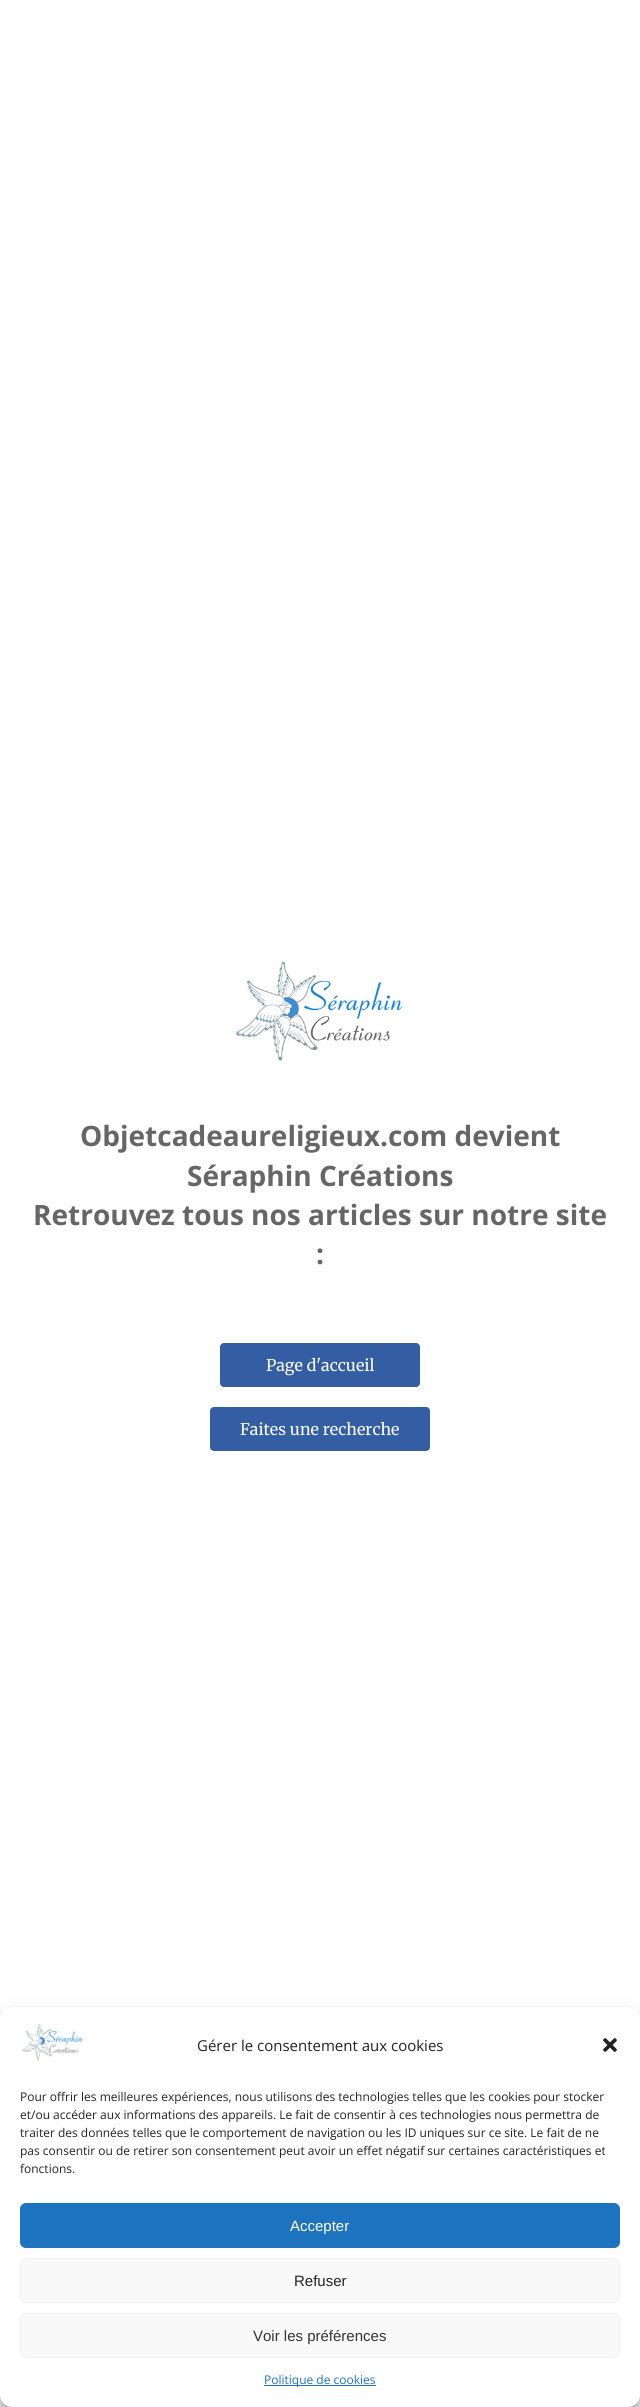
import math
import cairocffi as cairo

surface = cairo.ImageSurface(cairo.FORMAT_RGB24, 640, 2407)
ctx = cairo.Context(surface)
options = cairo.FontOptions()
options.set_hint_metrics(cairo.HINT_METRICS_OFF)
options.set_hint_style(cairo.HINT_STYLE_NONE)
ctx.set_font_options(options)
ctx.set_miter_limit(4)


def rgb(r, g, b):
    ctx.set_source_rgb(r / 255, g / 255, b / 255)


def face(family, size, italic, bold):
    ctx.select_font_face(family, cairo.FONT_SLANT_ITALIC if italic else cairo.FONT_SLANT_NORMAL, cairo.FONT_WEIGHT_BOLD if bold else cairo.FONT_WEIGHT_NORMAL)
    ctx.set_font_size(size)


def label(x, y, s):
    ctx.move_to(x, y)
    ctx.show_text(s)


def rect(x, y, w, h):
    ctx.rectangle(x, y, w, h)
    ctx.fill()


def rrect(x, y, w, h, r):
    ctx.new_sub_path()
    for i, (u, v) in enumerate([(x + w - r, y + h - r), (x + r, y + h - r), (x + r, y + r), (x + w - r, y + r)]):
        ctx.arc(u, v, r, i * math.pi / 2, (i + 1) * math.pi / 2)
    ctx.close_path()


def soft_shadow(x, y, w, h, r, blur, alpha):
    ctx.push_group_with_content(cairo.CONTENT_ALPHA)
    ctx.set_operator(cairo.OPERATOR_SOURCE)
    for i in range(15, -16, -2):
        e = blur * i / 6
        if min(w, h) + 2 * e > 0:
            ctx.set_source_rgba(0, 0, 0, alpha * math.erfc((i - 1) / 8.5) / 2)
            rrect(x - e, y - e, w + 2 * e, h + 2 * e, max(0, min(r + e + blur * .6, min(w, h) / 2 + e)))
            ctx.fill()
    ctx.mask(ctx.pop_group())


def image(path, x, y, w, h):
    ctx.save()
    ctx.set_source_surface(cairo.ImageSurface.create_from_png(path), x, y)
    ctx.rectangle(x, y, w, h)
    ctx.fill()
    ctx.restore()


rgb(255, 255, 255)
ctx.paint()
image('image0.png', 235, 961, 169, 100)
face('Open Sans', 28, 0, 1)
rgb(102, 102, 102)
label(80, 1146, 'Objetcadeaureligieux.com devient')
label(187, 1186, 'Séraphin Créations')
label(33, 1225, 'Retrouvez tous nos articles sur notre site')
label(316, 1264, ':')
rgb(52, 94, 163)
rrect(220, 1343, 200, 44, 4)
ctx.fill()
face('Merriweather', 16, 0, 0)
rgb(255, 255, 255)
label(266, 1371, 'Page d\'accueil')
rgb(52, 94, 163)
rrect(210, 1407, 220, 44, 4)
ctx.fill()
rgb(255, 255, 255)
label(240, 1435, 'Faites une recherche')
rgb(0, 0, 0)
soft_shadow(0, 2013, 640, 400, 12, 3, 0.23)
soft_shadow(0, 2017, 640, 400, 12, 10, 0.19)
rgb(255, 255, 255)
rrect(0, 2007, 640, 400, 12)
ctx.fill()
image('image1.png', 22, 2023, 61, 38)
face('Open Sans', 15, 0, 0)
rgb(34, 34, 34)
label(197, 2051, 'Gérer le consentement aux cookies')
image('image2.png', 603, 2038, 14, 14)
face('Open Sans', 12, 0, 0)
label(20, 2101, 'Pour offrir les meilleures expériences, nous utilisons des technologies telles que les cookies pour stocker')
label(20, 2119, 'et/ou accéder aux informations des appareils. Le fait de consentir à ces technologies nous permettra de')
label(20, 2137, 'traiter des données telles que le comportement de navigation ou les ID uniques sur ce site. Le fait de ne')
label(20, 2155, 'pas consentir ou de retirer son consentement peut avoir un effet négatif sur certaines caractéristiques et')
label(20, 2173, 'fonctions.')
rgb(30, 115, 190)
rrect(20.5, 2203.5, 599, 44, 5.5)
ctx.fill_preserve()
ctx.set_line_width(1)
ctx.stroke()
face('Liberation Sans', 15, 0, 0)
rgb(255, 255, 255)
label(290, 2231, 'Accepter')
rgb(249, 249, 249)
rrect(20.5, 2258.5, 599, 44, 5.5)
ctx.fill_preserve()
rgb(242, 242, 242)
ctx.stroke()
rgb(34, 34, 34)
label(294, 2286, 'Refuser')
rgb(249, 249, 249)
rrect(20.5, 2313.5, 599, 44, 5.5)
ctx.fill_preserve()
rgb(242, 242, 242)
ctx.stroke()
rgb(51, 51, 51)
label(253, 2341, 'Voir les préférences')
rgb(30, 115, 190)
rect(264, 2385, 112, 1)
face('Open Sans', 12, 0, 0)
label(264, 2384, 'Politique de cookies')
surface.write_to_png('render.png')
